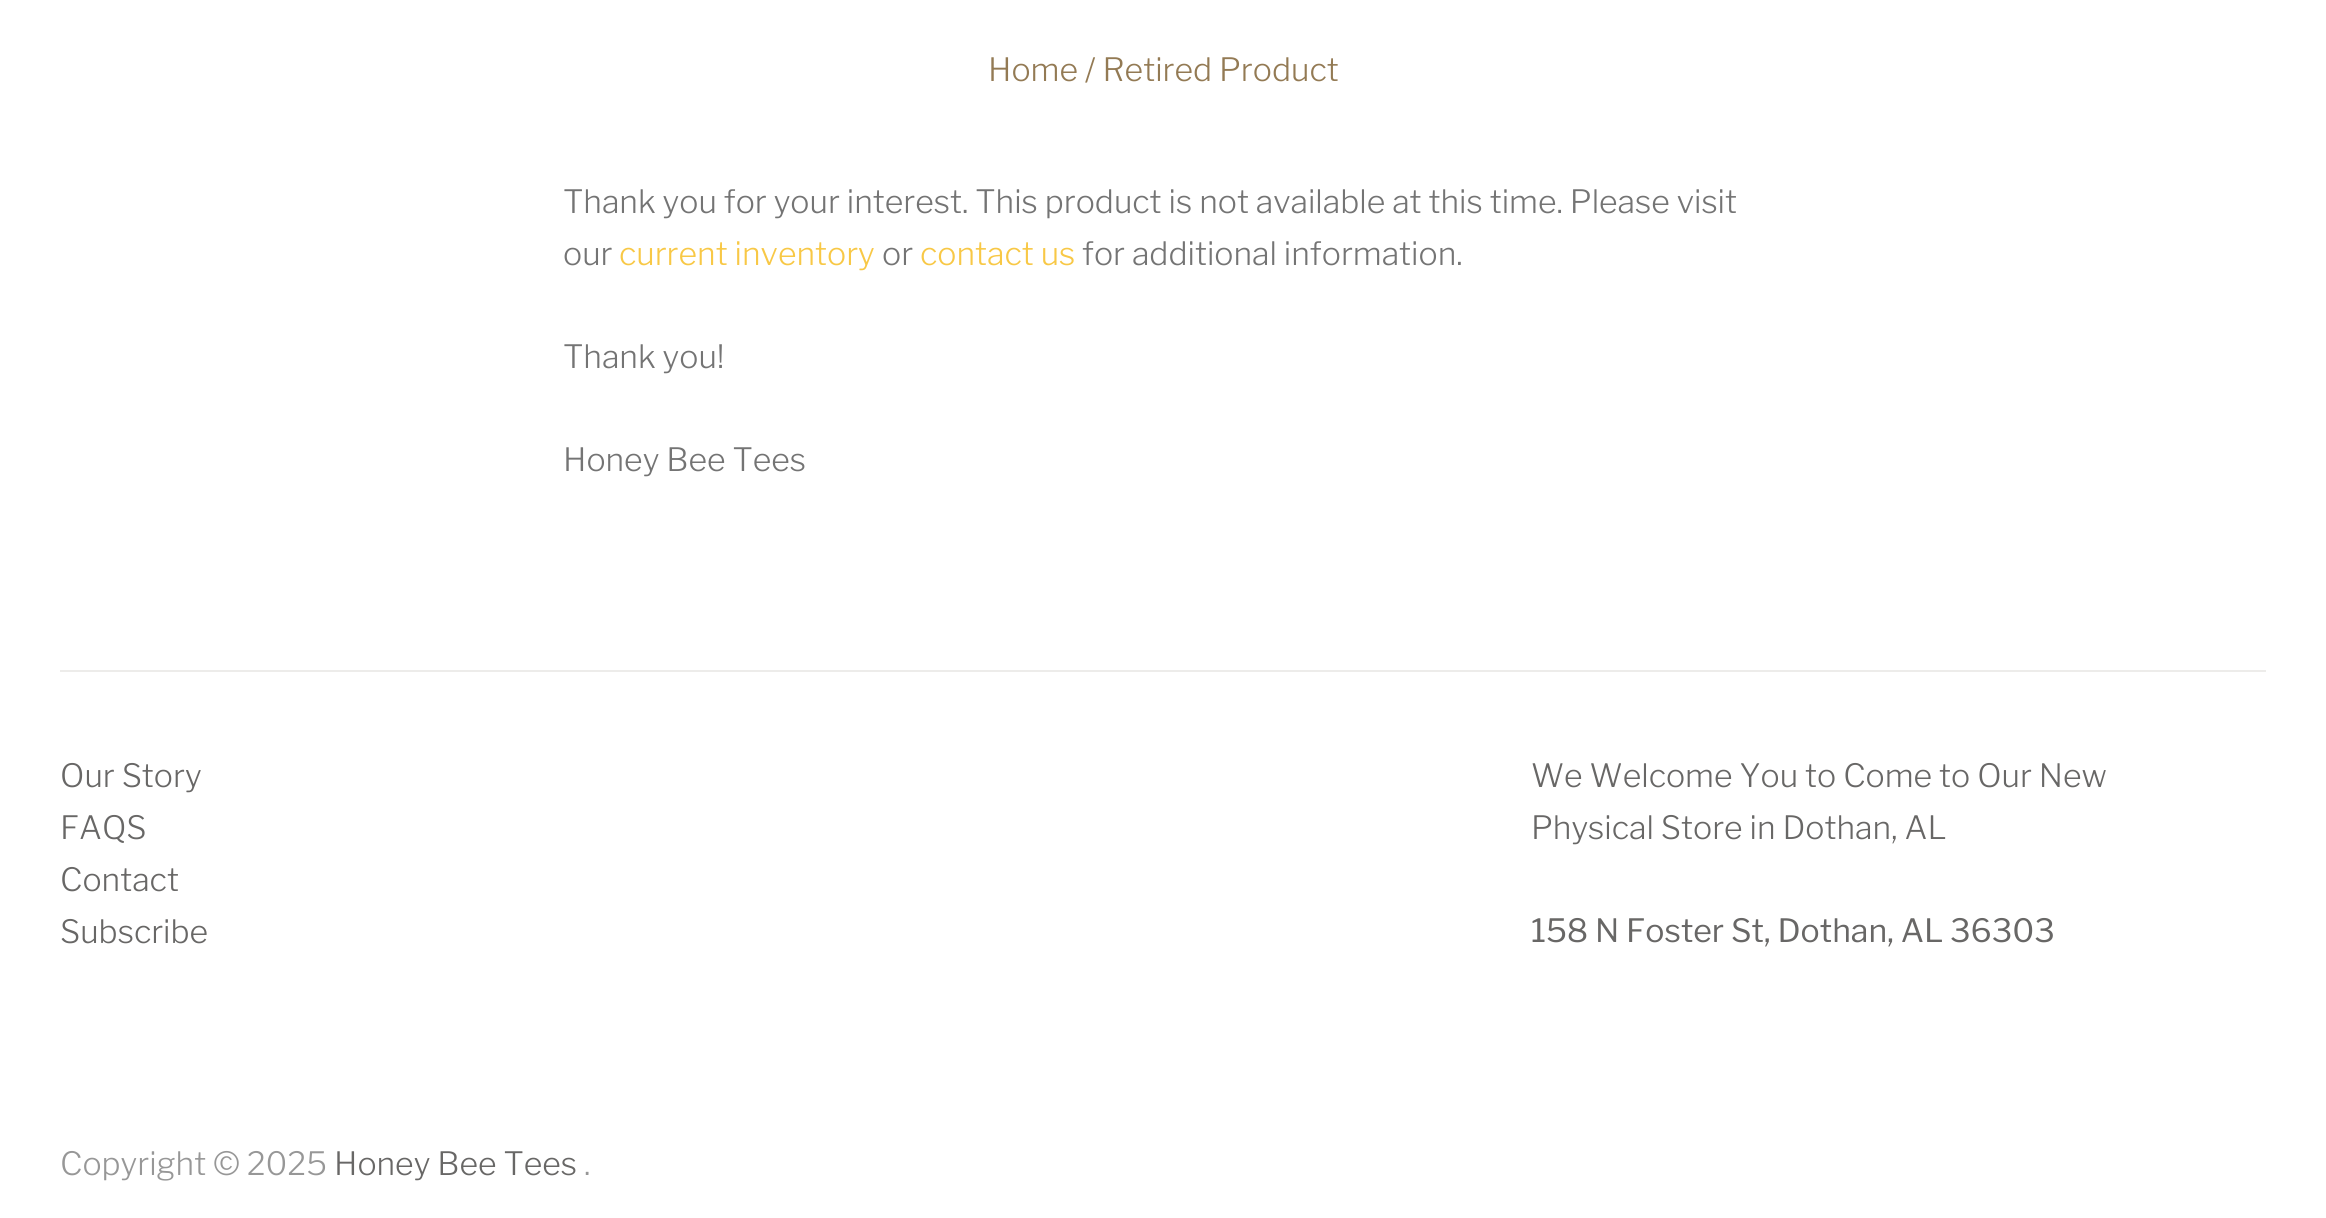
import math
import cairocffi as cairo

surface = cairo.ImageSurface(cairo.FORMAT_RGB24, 2326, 1218)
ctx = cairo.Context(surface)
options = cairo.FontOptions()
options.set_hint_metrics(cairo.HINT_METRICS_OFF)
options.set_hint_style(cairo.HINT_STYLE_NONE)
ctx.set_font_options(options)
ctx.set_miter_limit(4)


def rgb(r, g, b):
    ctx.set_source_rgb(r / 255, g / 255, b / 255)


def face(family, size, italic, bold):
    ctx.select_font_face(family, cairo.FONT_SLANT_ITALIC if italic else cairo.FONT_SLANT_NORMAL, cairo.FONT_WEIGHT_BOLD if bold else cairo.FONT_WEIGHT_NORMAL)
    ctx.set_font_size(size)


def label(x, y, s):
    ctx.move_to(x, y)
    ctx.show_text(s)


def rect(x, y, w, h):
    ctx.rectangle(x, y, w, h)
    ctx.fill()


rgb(255, 255, 255)
ctx.paint()
face('Libre Franklin Light', 32, 0, 0)
rgb(147, 122, 84)
label(988, 81, 'Home / Retired Product')
rgb(116, 116, 116)
label(563, 213, 'Thank you for your interest. This product is not available at this time. Please visit')
label(563, 265, 'our')
rgb(248, 200, 70)
label(619, 265, 'current inventory')
rgb(116, 116, 116)
label(882, 265, 'or')
rgb(248, 200, 70)
label(920, 265, 'contact us')
rgb(116, 116, 116)
label(1082, 265, 'for additional information.')
label(563, 368, 'Thank you!')
label(563, 471, 'Honey Bee Tees')
rgb(237, 236, 234)
rect(60, 670, 2206, 2)
rgb(104, 103, 102)
label(60, 787, 'Our Story')
label(60, 839, 'FAQS')
label(60, 891, 'Contact')
label(60, 943, 'Subscribe')
label(1531, 787, 'We Welcome You to Come to Our New')
label(1531, 839, 'Physical Store in Dothan, AL')
face('Libre Franklin', 32, 0, 0)
label(1531, 942, '158 N Foster St, Dothan, AL 36303')
face('Libre Franklin Light', 32, 0, 0)
rgb(151, 151, 151)
label(60, 1175, 'Copyright © 2025')
rgb(104, 103, 102)
label(334, 1175, 'Honey Bee Tees')
rgb(151, 151, 151)
label(584, 1175, '.')
surface.write_to_png('render.png')
